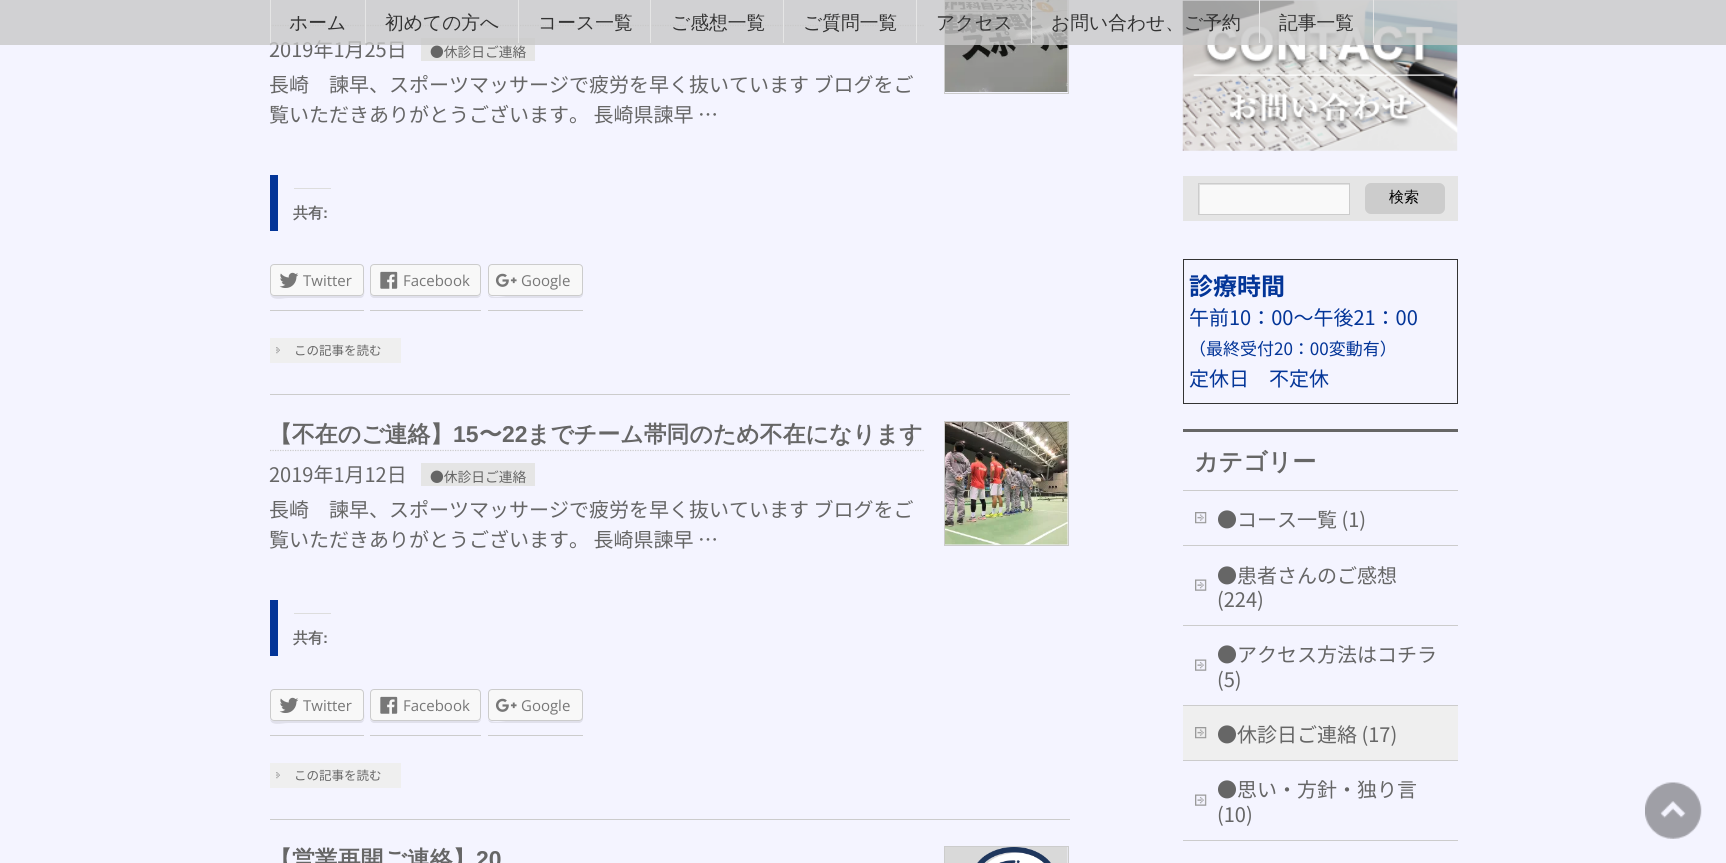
import math
import cairocffi as cairo

surface = cairo.ImageSurface(cairo.FORMAT_RGB24, 1726, 863)
ctx = cairo.Context(surface)
options = cairo.FontOptions()
options.set_hint_metrics(cairo.HINT_METRICS_OFF)
options.set_hint_style(cairo.HINT_STYLE_NONE)
ctx.set_font_options(options)
ctx.set_miter_limit(4)


def rgb(r, g, b):
    ctx.set_source_rgb(r / 255, g / 255, b / 255)


def face(family, size, italic, bold):
    ctx.select_font_face(family, cairo.FONT_SLANT_ITALIC if italic else cairo.FONT_SLANT_NORMAL, cairo.FONT_WEIGHT_BOLD if bold else cairo.FONT_WEIGHT_NORMAL)
    ctx.set_font_size(size)


def label(x, y, s):
    ctx.move_to(x, y)
    ctx.show_text(s)


def rect(x, y, w, h):
    ctx.rectangle(x, y, w, h)
    ctx.fill()


def rrect(x, y, w, h, r):
    ctx.new_sub_path()
    for i, (u, v) in enumerate([(x + w - r, y + h - r), (x + r, y + h - r), (x + r, y + r), (x + w - r, y + r)]):
        ctx.arc(u, v, r, i * math.pi / 2, (i + 1) * math.pi / 2)
    ctx.close_path()


def image(path, x, y, w, h):
    ctx.save()
    ctx.set_source_surface(cairo.ImageSurface.create_from_png(path), x, y)
    ctx.rectangle(x, y, w, h)
    ctx.fill()
    ctx.restore()


rgb(244, 244, 255)
ctx.paint()
ctx.new_path()
ctx.move_to(270, 25.5)
ctx.line_to(924, 25.5)
rgb(204, 204, 204)
ctx.set_line_width(1.2)
ctx.set_dash([1.25, 1.25])
ctx.stroke()
face('Noto Sans JP', 20, 0, 0)
rgb(102, 102, 102)
label(269, 57, '2019年1月25日')
rgb(229, 229, 229)
rect(421, 38, 114, 23)
ctx.rectangle(944.5, -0.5, 124, 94)
rgb(204, 204, 204)
ctx.set_line_width(1)
ctx.set_dash([])
ctx.stroke()
image('image4.png', 945, 0, 123, 92)
image('image7.png', 1182, 0, 276, 151)
ctx.set_source_rgba(0.784, 0.784, 0.784, 0.8)
rect(0, 0, 1726, 45)
rgb(229, 229, 229)
rect(270, 0, 1, 43)
rect(365, 0, 1, 43)
face('WenQuanYi Zen Hei Medium', 18.75, 0, 0)
rgb(51, 51, 51)
label(289, 29, 'ホーム')
rgb(229, 229, 229)
rect(518, 0, 1, 43)
rgb(51, 51, 51)
label(385, 29, '初めての方へ')
rgb(229, 229, 229)
rect(650, 0, 1, 43)
rgb(51, 51, 51)
label(538, 29, 'コース一覧')
rgb(229, 229, 229)
rect(783, 0, 1, 43)
rgb(51, 51, 51)
label(671, 29, 'ご感想一覧')
rgb(229, 229, 229)
rect(916, 0, 1, 43)
rgb(51, 51, 51)
label(803, 29, 'ご質問一覧')
rgb(229, 229, 229)
rect(1031, 0, 1, 43)
rgb(51, 51, 51)
label(936, 29, 'アクセス')
rgb(229, 229, 229)
rect(1259, 0, 1, 43)
rgb(51, 51, 51)
label(1051, 29, 'お問い合わせ、ご予約')
rgb(229, 229, 229)
rect(1373, 0, 1, 43)
rgb(51, 51, 51)
label(1279, 29, '記事一覧')
rgb(204, 204, 204)
rect(270, 394, 800, 1)
face('Noto Sans JP', 13.75, 0, 0)
rgb(102, 102, 102)
label(430, 57, '●休診日ご連絡')
face('Noto Sans JP', 20, 0, 0)
label(269, 92, '長崎　諫早、スポーツマッサージで疲労を早く抜いています ブログをご')
label(269, 122, '覧いただきありがとうございます。 長崎県諫早 …')
rgb(3, 53, 152)
rect(270, 175, 8, 56)
rgb(221, 221, 221)
rect(294, 188, 37, 1)
face('WenQuanYi Zen Hei', 15, 0, 1)
rgb(102, 102, 102)
label(293, 218, '共有')
face('Liberation Sans', 15, 0, 1)
label(323, 218, ':')
rgb(204, 204, 204)
rect(270, 310, 94, 1)
rgb(224, 224, 235)
ctx.new_path()
ctx.move_to(270, 292)
ctx.curve_to(270, 302, 282, 298, 288, 298)
ctx.line_to(360, 298)
ctx.curve_to(366, 298, 364, 289, 364, 286)
ctx.line_to(364, 268)
ctx.line_to(364, 292)
ctx.curve_to(364, 295, 362, 296, 360, 296)
ctx.line_to(274, 296)
ctx.curve_to(272, 296, 270, 295, 270, 292)
ctx.close_path()
ctx.fill()
rgb(248, 248, 248)
rrect(270.5, 264.5, 93, 31, 3.5)
ctx.fill_preserve()
rgb(204, 204, 204)
ctx.stroke()
image('image0.png', 279, 272, 20, 16)
face('Open Sans', 15, 0, 0)
rgb(119, 119, 119)
label(303, 286, 'Twitter')
rgb(204, 204, 204)
rect(370, 310, 111, 1)
rgb(224, 224, 235)
ctx.new_path()
ctx.move_to(370, 292)
ctx.line_to(370, 294)
ctx.curve_to(370, 296, 372, 298, 374, 298)
ctx.line_to(477, 298)
ctx.curve_to(479, 298, 481, 296, 481, 294)
ctx.curve_to(480, 295, 479, 296, 478, 296)
ctx.line_to(374, 296)
ctx.curve_to(372, 296, 370, 295, 370, 292)
ctx.close_path()
ctx.fill()
rgb(248, 248, 248)
rrect(370.5, 264.5, 110, 31, 3.5)
ctx.fill_preserve()
rgb(204, 204, 204)
ctx.stroke()
image('image1.png', 380, 271, 18, 18)
rgb(119, 119, 119)
label(403, 286, 'Facebook')
rgb(204, 204, 204)
rect(488, 310, 95, 1)
rgb(224, 224, 235)
ctx.new_path()
ctx.move_to(488, 294)
ctx.curve_to(488, 296, 490, 298, 492, 298)
ctx.line_to(579, 298)
ctx.curve_to(581, 298, 583, 296, 583, 294)
ctx.line_to(583, 269)
ctx.line_to(582, 267)
ctx.line_to(582, 288)
ctx.curve_to(582, 291, 583, 296, 579, 296)
ctx.line_to(506, 296)
ctx.curve_to(504, 296, 491, 299, 488, 294)
ctx.close_path()
ctx.fill()
rgb(248, 248, 248)
rrect(488.5, 264.5, 94, 31, 3.5)
ctx.fill_preserve()
rgb(204, 204, 204)
ctx.stroke()
image('image2.png', 495, 273, 22, 14)
rgb(119, 119, 119)
label(521, 286, 'Google')
rgb(239, 239, 239)
rect(270, 338, 131, 25)
image('image3.png', 276, 347, 4, 7)
face('Noto Sans JP', 12.5, 0, 0)
rgb(102, 102, 102)
label(294, 355, 'この記事を読む')
rgb(204, 204, 204)
rect(270, 819, 800, 1)
ctx.new_path()
ctx.move_to(270, 450.5)
ctx.line_to(924, 450.5)
ctx.set_line_width(1.2)
ctx.set_dash([1.25, 1.25])
ctx.stroke()
face('WenQuanYi Zen Hei', 22.9, 0, 1)
rgb(102, 102, 102)
label(269, 442, '【不在のご連絡】')
face('Liberation Sans', 22.9, 0, 1)
label(453, 442, '15')
face('WenQuanYi Zen Hei', 22.9, 0, 1)
label(479, 442, '〜')
face('Liberation Sans', 22.9, 0, 1)
label(502, 442, '22')
face('WenQuanYi Zen Hei', 22.9, 0, 1)
label(527, 442, 'までチーム帯同のため不在になります')
face('Noto Sans JP', 20, 0, 0)
label(269, 482, '2019年1月12日')
rgb(229, 229, 229)
rect(421, 463, 114, 23)
face('Noto Sans JP', 13.75, 0, 0)
rgb(102, 102, 102)
label(430, 482, '●休診日ご連絡')
face('Noto Sans JP', 20, 0, 0)
label(269, 517, '長崎　諫早、スポーツマッサージで疲労を早く抜いています ブログをご')
label(269, 547, '覧いただきありがとうございます。 長崎県諫早 …')
rgb(3, 53, 152)
rect(270, 600, 8, 56)
rgb(221, 221, 221)
rect(294, 613, 37, 1)
face('WenQuanYi Zen Hei', 15, 0, 1)
rgb(102, 102, 102)
label(293, 643, '共有')
face('Liberation Sans', 15, 0, 1)
label(323, 643, ':')
rgb(204, 204, 204)
rect(270, 735, 94, 1)
rgb(224, 224, 235)
ctx.new_path()
ctx.move_to(270, 718)
ctx.curve_to(270, 727, 282, 723, 288, 723)
ctx.line_to(360, 723)
ctx.curve_to(366, 723, 364, 714, 364, 711)
ctx.line_to(364, 693)
ctx.line_to(364, 718)
ctx.curve_to(364, 720, 362, 721, 360, 721)
ctx.line_to(274, 721)
ctx.curve_to(272, 721, 270, 720, 270, 718)
ctx.close_path()
ctx.fill()
rgb(248, 248, 248)
rrect(270.5, 689.5, 93, 31, 3.5)
ctx.fill_preserve()
rgb(204, 204, 204)
ctx.set_line_width(1)
ctx.set_dash([])
ctx.stroke()
image('image0.png', 279, 697, 20, 16)
face('Open Sans', 15, 0, 0)
rgb(119, 119, 119)
label(303, 711, 'Twitter')
rgb(204, 204, 204)
rect(370, 735, 111, 1)
rgb(224, 224, 235)
ctx.new_path()
ctx.move_to(370, 718)
ctx.line_to(370, 719)
ctx.curve_to(370, 721, 372, 723, 374, 723)
ctx.line_to(477, 723)
ctx.curve_to(479, 723, 481, 721, 481, 719)
ctx.curve_to(480, 720, 479, 721, 478, 721)
ctx.line_to(374, 721)
ctx.curve_to(372, 721, 370, 720, 370, 718)
ctx.close_path()
ctx.fill()
rgb(248, 248, 248)
rrect(370.5, 689.5, 110, 31, 3.5)
ctx.fill_preserve()
rgb(204, 204, 204)
ctx.stroke()
image('image1.png', 380, 696, 18, 18)
rgb(119, 119, 119)
label(403, 711, 'Facebook')
rgb(204, 204, 204)
rect(488, 735, 95, 1)
rgb(224, 224, 235)
ctx.new_path()
ctx.move_to(488, 719)
ctx.curve_to(488, 721, 490, 723, 492, 723)
ctx.line_to(579, 723)
ctx.curve_to(581, 723, 583, 721, 583, 719)
ctx.line_to(583, 694)
ctx.line_to(582, 692)
ctx.line_to(582, 713)
ctx.curve_to(582, 716, 583, 721, 579, 721)
ctx.line_to(506, 721)
ctx.curve_to(504, 721, 491, 724, 488, 719)
ctx.close_path()
ctx.fill()
rgb(248, 248, 248)
rrect(488.5, 689.5, 94, 31, 3.5)
ctx.fill_preserve()
rgb(204, 204, 204)
ctx.stroke()
image('image2.png', 495, 698, 22, 14)
rgb(119, 119, 119)
label(521, 711, 'Google')
rgb(239, 239, 239)
rect(270, 763, 131, 25)
image('image3.png', 276, 772, 4, 7)
face('Noto Sans JP', 12.5, 0, 0)
rgb(102, 102, 102)
label(294, 780, 'この記事を読む')
ctx.rectangle(944.5, 421.5, 124, 124)
rgb(204, 204, 204)
ctx.stroke()
image('image5.png', 945, 422, 123, 123)
face('WenQuanYi Zen Hei', 22.9, 0, 1)
rgb(102, 102, 102)
label(269, 867, '【営業再開ご連絡】')
face('Liberation Sans', 22.9, 0, 1)
label(476, 867, '20')
ctx.rectangle(944.5, 846.5, 124, 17)
rgb(204, 204, 204)
ctx.stroke()
image('image6.png', 945, 847, 123, 16)
rgb(229, 229, 229)
rect(1183, 176, 275, 45)
rgb(249, 249, 249)
rect(1200, 185, 149, 29)
ctx.save()
ctx.rectangle(1199, 184, 150, 30)
ctx.clip()
rgb(224, 224, 224)
ctx.set_fill_rule(cairo.FILL_RULE_EVEN_ODD)
ctx.new_path()
ctx.move_to(1075, 60)
ctx.line_to(1472, 60)
ctx.line_to(1472, 338)
ctx.line_to(1075, 338)
ctx.close_path()
ctx.move_to(1200, 185)
ctx.line_to(1350, 185)
ctx.line_to(1350, 215)
ctx.line_to(1200, 215)
ctx.close_path()
ctx.fill()
ctx.restore()
ctx.rectangle(1198.5, 183.5, 151, 31)
rgb(204, 204, 204)
ctx.stroke()
rrect(1365, 183, 80, 31, 6)
ctx.fill()
face('WenQuanYi Zen Hei Medium', 15, 0, 0)
rgb(0, 0, 0)
label(1389, 202, '検索')
ctx.rectangle(1183.5, 259.5, 274, 144)
rgb(51, 51, 51)
ctx.stroke()
face('Noto Sans JP', 24, 0, 1)
rgb(3, 53, 152)
label(1189, 295, '診療時間')
face('Noto Sans JP', 20, 0, 0)
label(1189, 325, '午前10：00～午後21：00')
face('Noto Sans JP', 17, 0, 0)
label(1189, 355, '（最終受付20：00変動有）')
face('Noto Sans JP', 20, 0, 0)
label(1189, 386, '定休日　不定休')
rgb(102, 102, 102)
rect(1183, 429, 275, 3)
rgb(204, 204, 204)
rect(1183, 490, 275, 1)
face('WenQuanYi Zen Hei', 24, 0, 1)
rgb(102, 102, 102)
label(1194, 470, 'カテゴリー')
rgb(204, 204, 204)
rect(1183, 545, 275, 1)
image('image8.png', 1195, 512, 12, 12)
face('Noto Sans JP', 20, 0, 0)
rgb(102, 102, 102)
label(1217, 527, '●コース一覧 (1)')
rgb(204, 204, 204)
rect(1183, 625, 275, 1)
image('image9.png', 1195, 579, 12, 12)
rgb(102, 102, 102)
label(1217, 583, '●患者さんのご感想')
label(1217, 607, '(224)')
rgb(204, 204, 204)
rect(1183, 705, 275, 1)
image('image9.png', 1195, 659, 12, 12)
rgb(102, 102, 102)
label(1217, 662, '●アクセス方法はコチラ')
label(1217, 687, '(5)')
rgb(204, 204, 204)
rect(1183, 760, 275, 1)
rgb(239, 239, 239)
rect(1183, 706, 275, 54)
image('image10.png', 1195, 727, 12, 12)
rgb(102, 102, 102)
label(1217, 742, '●休診日ご連絡 (17)')
rgb(204, 204, 204)
rect(1183, 840, 275, 1)
image('image9.png', 1195, 794, 12, 12)
rgb(102, 102, 102)
label(1217, 797, '●思い・方針・独り言')
label(1217, 822, '(10)')
image('image11.png', 1645, 782, 57, 57)
surface.write_to_png('render.png')
